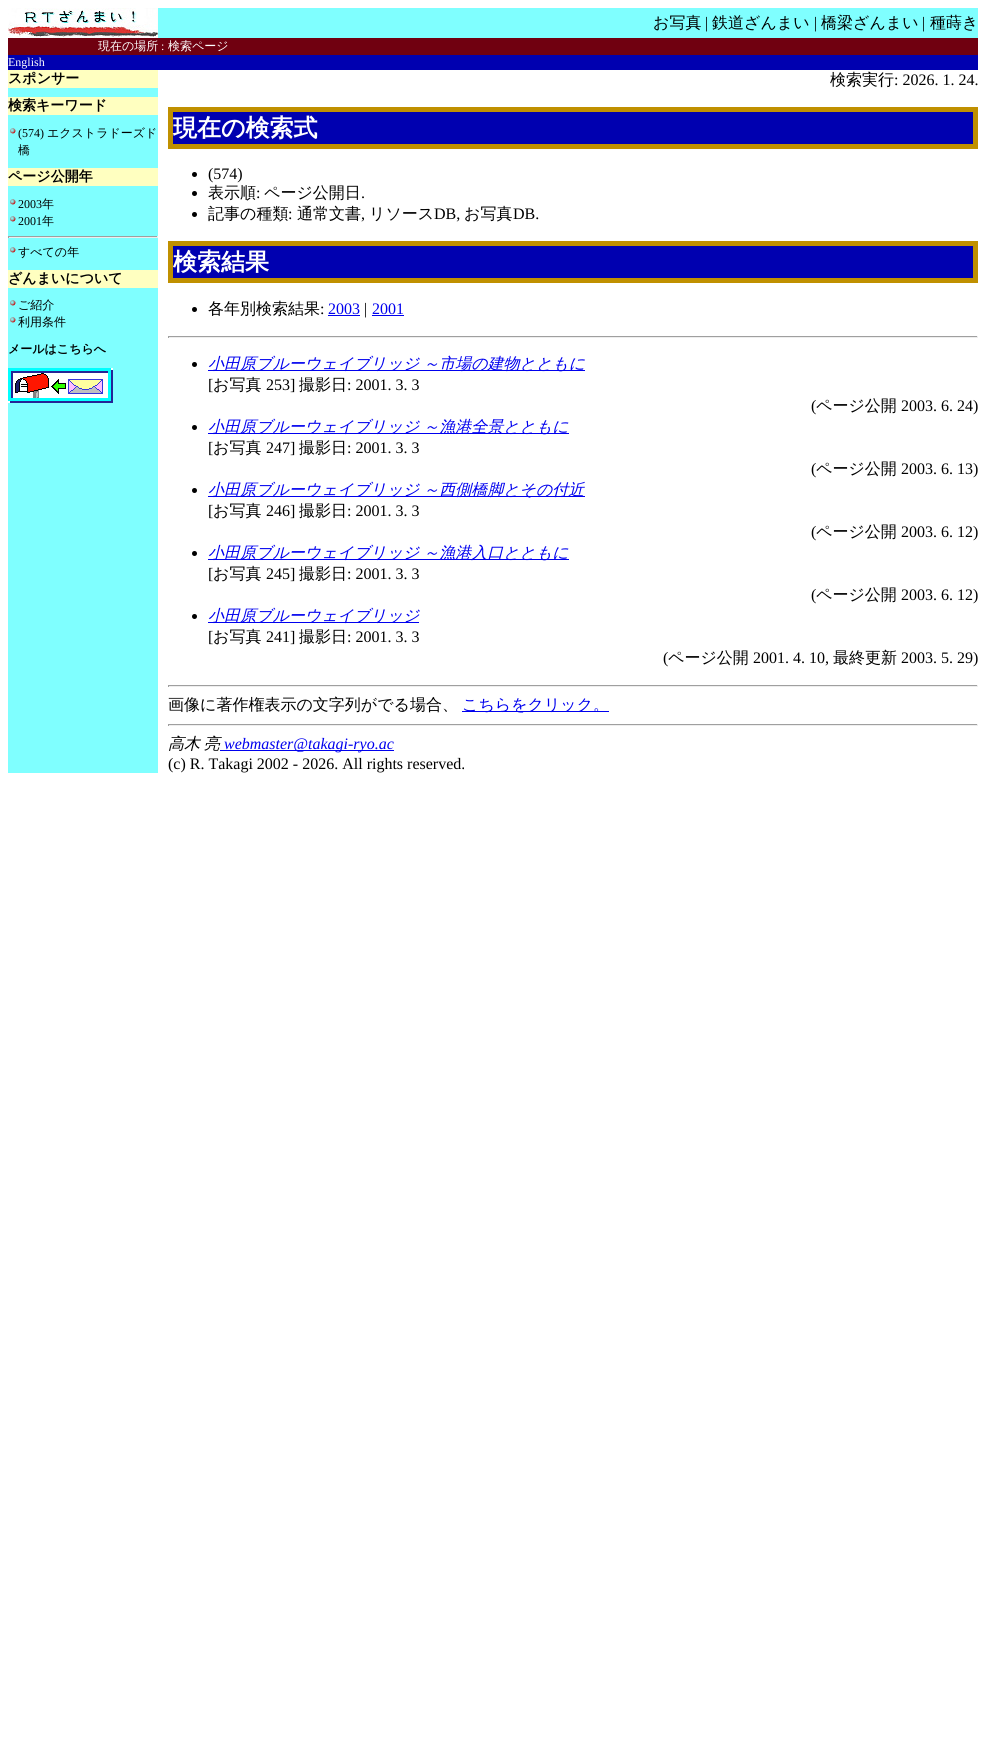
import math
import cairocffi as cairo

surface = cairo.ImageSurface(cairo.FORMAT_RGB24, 986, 1759)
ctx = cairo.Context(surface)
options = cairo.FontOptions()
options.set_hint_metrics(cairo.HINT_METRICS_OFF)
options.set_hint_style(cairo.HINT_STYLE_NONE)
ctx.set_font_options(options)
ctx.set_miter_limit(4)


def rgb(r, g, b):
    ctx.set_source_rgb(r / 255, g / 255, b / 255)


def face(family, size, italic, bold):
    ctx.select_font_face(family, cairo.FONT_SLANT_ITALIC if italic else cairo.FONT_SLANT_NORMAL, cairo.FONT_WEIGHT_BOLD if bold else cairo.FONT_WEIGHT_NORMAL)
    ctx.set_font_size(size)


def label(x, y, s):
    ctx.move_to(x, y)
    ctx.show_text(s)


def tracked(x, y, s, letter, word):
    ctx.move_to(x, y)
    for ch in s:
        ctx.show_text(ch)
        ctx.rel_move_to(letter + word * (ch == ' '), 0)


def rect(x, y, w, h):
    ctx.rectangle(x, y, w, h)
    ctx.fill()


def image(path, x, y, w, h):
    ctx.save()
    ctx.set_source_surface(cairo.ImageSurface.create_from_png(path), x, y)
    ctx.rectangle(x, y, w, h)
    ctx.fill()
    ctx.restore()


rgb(255, 255, 255)
ctx.paint()
image('image0.png', 8, 8, 150, 30)
rgb(127, 255, 255)
rect(158, 8, 820, 30)
face('WenQuanYi Zen Hei Medium', 16, 0, 0)
rgb(0, 0, 0)
label(653, 28, 'お写真')
face('Liberation Serif', 16, 0, 0)
label(705, 28, '|')
face('WenQuanYi Zen Hei Medium', 16, 0, 0)
label(712, 28, '鉄道ざんまい')
face('Liberation Serif', 16, 0, 0)
label(814, 28, '|')
face('WenQuanYi Zen Hei Medium', 16, 0, 0)
label(821, 28, '橋梁ざんまい')
face('Liberation Serif', 16, 0, 0)
label(922, 28, '|')
face('WenQuanYi Zen Hei Medium', 16, 0, 0)
label(930, 28, '種蒔き')
rgb(112, 0, 16)
rect(8, 38, 970, 17)
face('WenQuanYi Zen Hei Medium', 12, 0, 0)
rgb(255, 255, 255)
label(98, 50, '現在の場所')
face('Liberation Serif', 12, 0, 0)
label(161, 50, ':')
face('WenQuanYi Zen Hei Medium', 12, 0, 0)
label(168, 50, '検索ページ')
rgb(0, 0, 176)
rect(8, 55, 970, 15)
face('Liberation Serif', 12, 0, 0)
rgb(255, 255, 255)
label(8, 66, 'English')
rgb(127, 255, 255)
rect(8, 88, 150, 685)
rgb(255, 255, 192)
rect(8, 70, 150, 18)
face('WenQuanYi Zen Hei', 14, 0, 1)
rgb(0, 0, 0)
label(8, 83, 'スポンサー')
rgb(255, 255, 192)
rect(8, 97, 150, 18)
rgb(0, 0, 0)
label(8, 110, '検索キーワード')
image('image1.png', 10, 128, 6, 6)
face('Liberation Serif', 12, 0, 0)
label(18, 137, '(574)')
face('WenQuanYi Zen Hei Medium', 12, 0, 0)
label(47, 137, 'エクストラドーズド')
label(18, 154, '橋')
rgb(255, 255, 192)
rect(8, 168, 150, 18)
face('WenQuanYi Zen Hei', 14, 0, 1)
rgb(0, 0, 0)
label(8, 181, 'ページ公開年')
image('image1.png', 10, 199, 6, 6)
face('Liberation Serif', 12, 0, 0)
label(18, 208, '2003')
face('WenQuanYi Zen Hei Medium', 12, 0, 0)
label(42, 208, '年')
image('image1.png', 10, 216, 6, 6)
face('Liberation Serif', 12, 0, 0)
label(18, 225, '2001')
face('WenQuanYi Zen Hei Medium', 12, 0, 0)
label(42, 225, '年')
rgb(159, 159, 159)
rect(8, 236, 150, 1)
rgb(238, 238, 238)
rect(157, 236, 1, 2)
rect(8, 237, 150, 1)
rgb(159, 159, 159)
rect(8, 236, 1, 2)
image('image1.png', 10, 247, 6, 6)
rgb(0, 0, 0)
label(18, 256, 'すべての年')
rgb(255, 255, 192)
rect(8, 270, 150, 18)
face('WenQuanYi Zen Hei', 14, 0, 1)
rgb(0, 0, 0)
label(8, 283, 'ざんまいについて')
image('image1.png', 10, 300, 6, 6)
face('WenQuanYi Zen Hei Medium', 12, 0, 0)
label(18, 309, 'ご紹介')
image('image1.png', 10, 317, 6, 6)
label(18, 326, '利用条件')
face('WenQuanYi Zen Hei', 12, 0, 1)
label(8, 353, 'メールはこちらへ')
image('image2.png', 8, 368, 105, 35)
face('WenQuanYi Zen Hei Medium', 16, 0, 0)
label(830, 85, '検索実行')
face('Liberation Serif', 16, 0, 0)
label(894, 85, ': 2026. 1. 24.')
rgb(0, 0, 176)
ctx.rectangle(170.5, 109.5, 805, 37)
ctx.fill_preserve()
rgb(192, 144, 0)
ctx.set_line_width(5)
ctx.stroke()
face('WenQuanYi Zen Hei', 24, 0, 1)
rgb(255, 255, 255)
label(173, 136, '現在の検索式')
rgb(0, 0, 0)
ctx.new_path()
ctx.arc(194.5, 174.5, 2.5, 0, 2 * math.pi)
ctx.fill()
face('Liberation Serif', 16, 0, 0)
label(208, 179, '(574)')
ctx.new_path()
ctx.arc(194.5, 193.5, 2.5, 0, 2 * math.pi)
ctx.fill()
face('WenQuanYi Zen Hei Medium', 16, 0, 0)
label(208, 198, '表示順')
face('Liberation Serif', 16, 0, 0)
label(256, 198, ':')
face('WenQuanYi Zen Hei Medium', 16, 0, 0)
label(264, 198, 'ページ公開日')
face('Liberation Serif', 16, 0, 0)
label(361, 198, '.')
ctx.new_path()
ctx.arc(194.5, 214.5, 2.5, 0, 2 * math.pi)
ctx.fill()
face('WenQuanYi Zen Hei Medium', 16, 0, 0)
label(208, 219, '記事の種類')
face('Liberation Serif', 16, 0, 0)
label(288, 219, ':')
face('WenQuanYi Zen Hei Medium', 16, 0, 0)
label(297, 219, '通常文書')
label(369, 219, 'リソース')
face('Liberation Serif', 16, 0, 0)
label(434, 219, 'DB,')
face('WenQuanYi Zen Hei Medium', 16, 0, 0)
label(464, 219, 'お写真')
face('Liberation Serif', 16, 0, 0)
label(513, 219, 'DB.')
label(361, 219, ',')
rgb(0, 0, 176)
ctx.rectangle(170.5, 243.5, 805, 37)
ctx.fill_preserve()
rgb(192, 144, 0)
ctx.stroke()
face('WenQuanYi Zen Hei', 24, 0, 1)
rgb(255, 255, 255)
label(173, 270, '検索結果')
rgb(0, 0, 0)
ctx.new_path()
ctx.arc(194.5, 309.5, 2.5, 0, 2 * math.pi)
ctx.fill()
face('WenQuanYi Zen Hei Medium', 16, 0, 0)
label(208, 314, '各年別検索結果')
face('Liberation Serif', 16, 0, 0)
label(320, 314, ':')
rgb(0, 0, 238)
label(328, 314, '2003')
rect(328, 315, 32, 1)
rgb(0, 0, 0)
label(364, 314, '|')
rgb(0, 0, 238)
label(372, 314, '2001')
rect(372, 315, 32, 1)
rgb(159, 159, 159)
rect(168, 336, 810, 1)
rgb(238, 238, 238)
rect(977, 336, 1, 2)
rect(168, 337, 810, 1)
rgb(159, 159, 159)
rect(168, 336, 1, 2)
rgb(0, 0, 0)
ctx.new_path()
ctx.arc(194.5, 364.5, 2.5, 0, 2 * math.pi)
ctx.fill()
rgb(0, 0, 238)
rect(208, 370, 377, 1)
face('WenQuanYi Zen Hei Medium', 16, 1, 0)
tracked(208, 369, '小田原ブルーウェイブリッジ ～市場の建物とともに', 0, -1)
face('Liberation Serif', 16, 0, 0)
rgb(0, 0, 0)
label(208, 390, '[')
face('WenQuanYi Zen Hei Medium', 16, 0, 0)
label(213, 390, 'お写真')
face('Liberation Serif', 16, 0, 0)
label(266, 390, '253]')
face('WenQuanYi Zen Hei Medium', 16, 0, 0)
label(299, 390, '撮影日')
face('Liberation Serif', 16, 0, 0)
label(347, 390, ': 2001. 3. 3')
label(811, 411, '(')
face('WenQuanYi Zen Hei Medium', 16, 0, 0)
label(816, 411, 'ページ公開')
face('Liberation Serif', 16, 0, 0)
label(901, 411, '2003. 6. 24)')
ctx.new_path()
ctx.arc(194.5, 427.5, 2.5, 0, 2 * math.pi)
ctx.fill()
rgb(0, 0, 238)
rect(208, 433, 361, 1)
face('WenQuanYi Zen Hei Medium', 16, 1, 0)
tracked(208, 432, '小田原ブルーウェイブリッジ ～漁港全景とともに', 0, -1)
face('Liberation Serif', 16, 0, 0)
rgb(0, 0, 0)
label(208, 453, '[')
face('WenQuanYi Zen Hei Medium', 16, 0, 0)
label(213, 453, 'お写真')
face('Liberation Serif', 16, 0, 0)
label(266, 453, '247]')
face('WenQuanYi Zen Hei Medium', 16, 0, 0)
label(299, 453, '撮影日')
face('Liberation Serif', 16, 0, 0)
label(347, 453, ': 2001. 3. 3')
label(811, 474, '(')
face('WenQuanYi Zen Hei Medium', 16, 0, 0)
label(816, 474, 'ページ公開')
face('Liberation Serif', 16, 0, 0)
label(901, 474, '2003. 6. 13)')
ctx.new_path()
ctx.arc(194.5, 490.5, 2.5, 0, 2 * math.pi)
ctx.fill()
rgb(0, 0, 238)
rect(208, 496, 377, 1)
face('WenQuanYi Zen Hei Medium', 16, 1, 0)
tracked(208, 495, '小田原ブルーウェイブリッジ ～西側橋脚とその付近', 0, -1)
face('Liberation Serif', 16, 0, 0)
rgb(0, 0, 0)
label(208, 516, '[')
face('WenQuanYi Zen Hei Medium', 16, 0, 0)
label(213, 516, 'お写真')
face('Liberation Serif', 16, 0, 0)
label(266, 516, '246]')
face('WenQuanYi Zen Hei Medium', 16, 0, 0)
label(299, 516, '撮影日')
face('Liberation Serif', 16, 0, 0)
label(347, 516, ': 2001. 3. 3')
label(811, 537, '(')
face('WenQuanYi Zen Hei Medium', 16, 0, 0)
label(816, 537, 'ページ公開')
face('Liberation Serif', 16, 0, 0)
label(901, 537, '2003. 6. 12)')
ctx.new_path()
ctx.arc(194.5, 553.5, 2.5, 0, 2 * math.pi)
ctx.fill()
rgb(0, 0, 238)
rect(208, 559, 361, 1)
face('WenQuanYi Zen Hei Medium', 16, 1, 0)
tracked(208, 558, '小田原ブルーウェイブリッジ ～漁港入口とともに', 0, -1)
face('Liberation Serif', 16, 0, 0)
rgb(0, 0, 0)
label(208, 579, '[')
face('WenQuanYi Zen Hei Medium', 16, 0, 0)
label(213, 579, 'お写真')
face('Liberation Serif', 16, 0, 0)
label(266, 579, '245]')
face('WenQuanYi Zen Hei Medium', 16, 0, 0)
label(299, 579, '撮影日')
face('Liberation Serif', 16, 0, 0)
label(347, 579, ': 2001. 3. 3')
label(811, 600, '(')
face('WenQuanYi Zen Hei Medium', 16, 0, 0)
label(816, 600, 'ページ公開')
face('Liberation Serif', 16, 0, 0)
label(901, 600, '2003. 6. 12)')
ctx.new_path()
ctx.arc(194.5, 616.5, 2.5, 0, 2 * math.pi)
ctx.fill()
rgb(0, 0, 238)
rect(208, 622, 211, 1)
face('WenQuanYi Zen Hei Medium', 16, 1, 0)
label(208, 621, '小田原ブルーウェイブリッジ')
face('Liberation Serif', 16, 0, 0)
rgb(0, 0, 0)
label(208, 642, '[')
face('WenQuanYi Zen Hei Medium', 16, 0, 0)
label(213, 642, 'お写真')
face('Liberation Serif', 16, 0, 0)
label(266, 642, '241]')
face('WenQuanYi Zen Hei Medium', 16, 0, 0)
label(299, 642, '撮影日')
face('Liberation Serif', 16, 0, 0)
label(347, 642, ': 2001. 3. 3')
label(663, 663, '(')
face('WenQuanYi Zen Hei Medium', 16, 0, 0)
label(668, 663, 'ページ公開')
face('Liberation Serif', 16, 0, 0)
label(753, 663, '2001. 4. 10,')
face('WenQuanYi Zen Hei Medium', 16, 0, 0)
label(833, 663, '最終更新')
face('Liberation Serif', 16, 0, 0)
label(901, 663, '2003. 5. 29)')
rgb(159, 159, 159)
rect(168, 685, 810, 1)
rgb(238, 238, 238)
rect(977, 685, 1, 2)
rect(168, 686, 810, 1)
rgb(159, 159, 159)
rect(168, 685, 1, 2)
face('WenQuanYi Zen Hei Medium', 16, 0, 0)
rgb(0, 0, 0)
label(168, 710, '画像に著作権表示の文字列がでる場合、')
rgb(0, 0, 238)
rect(462, 711, 147, 1)
label(462, 710, 'こちらをクリック。')
rgb(159, 159, 159)
rect(168, 724, 810, 1)
rgb(238, 238, 238)
rect(977, 724, 1, 2)
rect(168, 725, 810, 1)
rgb(159, 159, 159)
rect(168, 724, 1, 2)
face('WenQuanYi Zen Hei Medium', 16, 1, 0)
rgb(0, 0, 0)
tracked(168, 749, '高木 亮', 0, -1)
rgb(0, 0, 238)
rect(220, 750, 174, 1)
face('Liberation Serif', 16, 1, 0)
label(224, 749, 'webmaster@takagi-ryo.ac')
face('Liberation Serif', 16, 0, 0)
rgb(0, 0, 0)
label(168, 769, '(c) R. Takagi 2002 - 2026. All rights reserved.')
surface.write_to_png('render.png')
